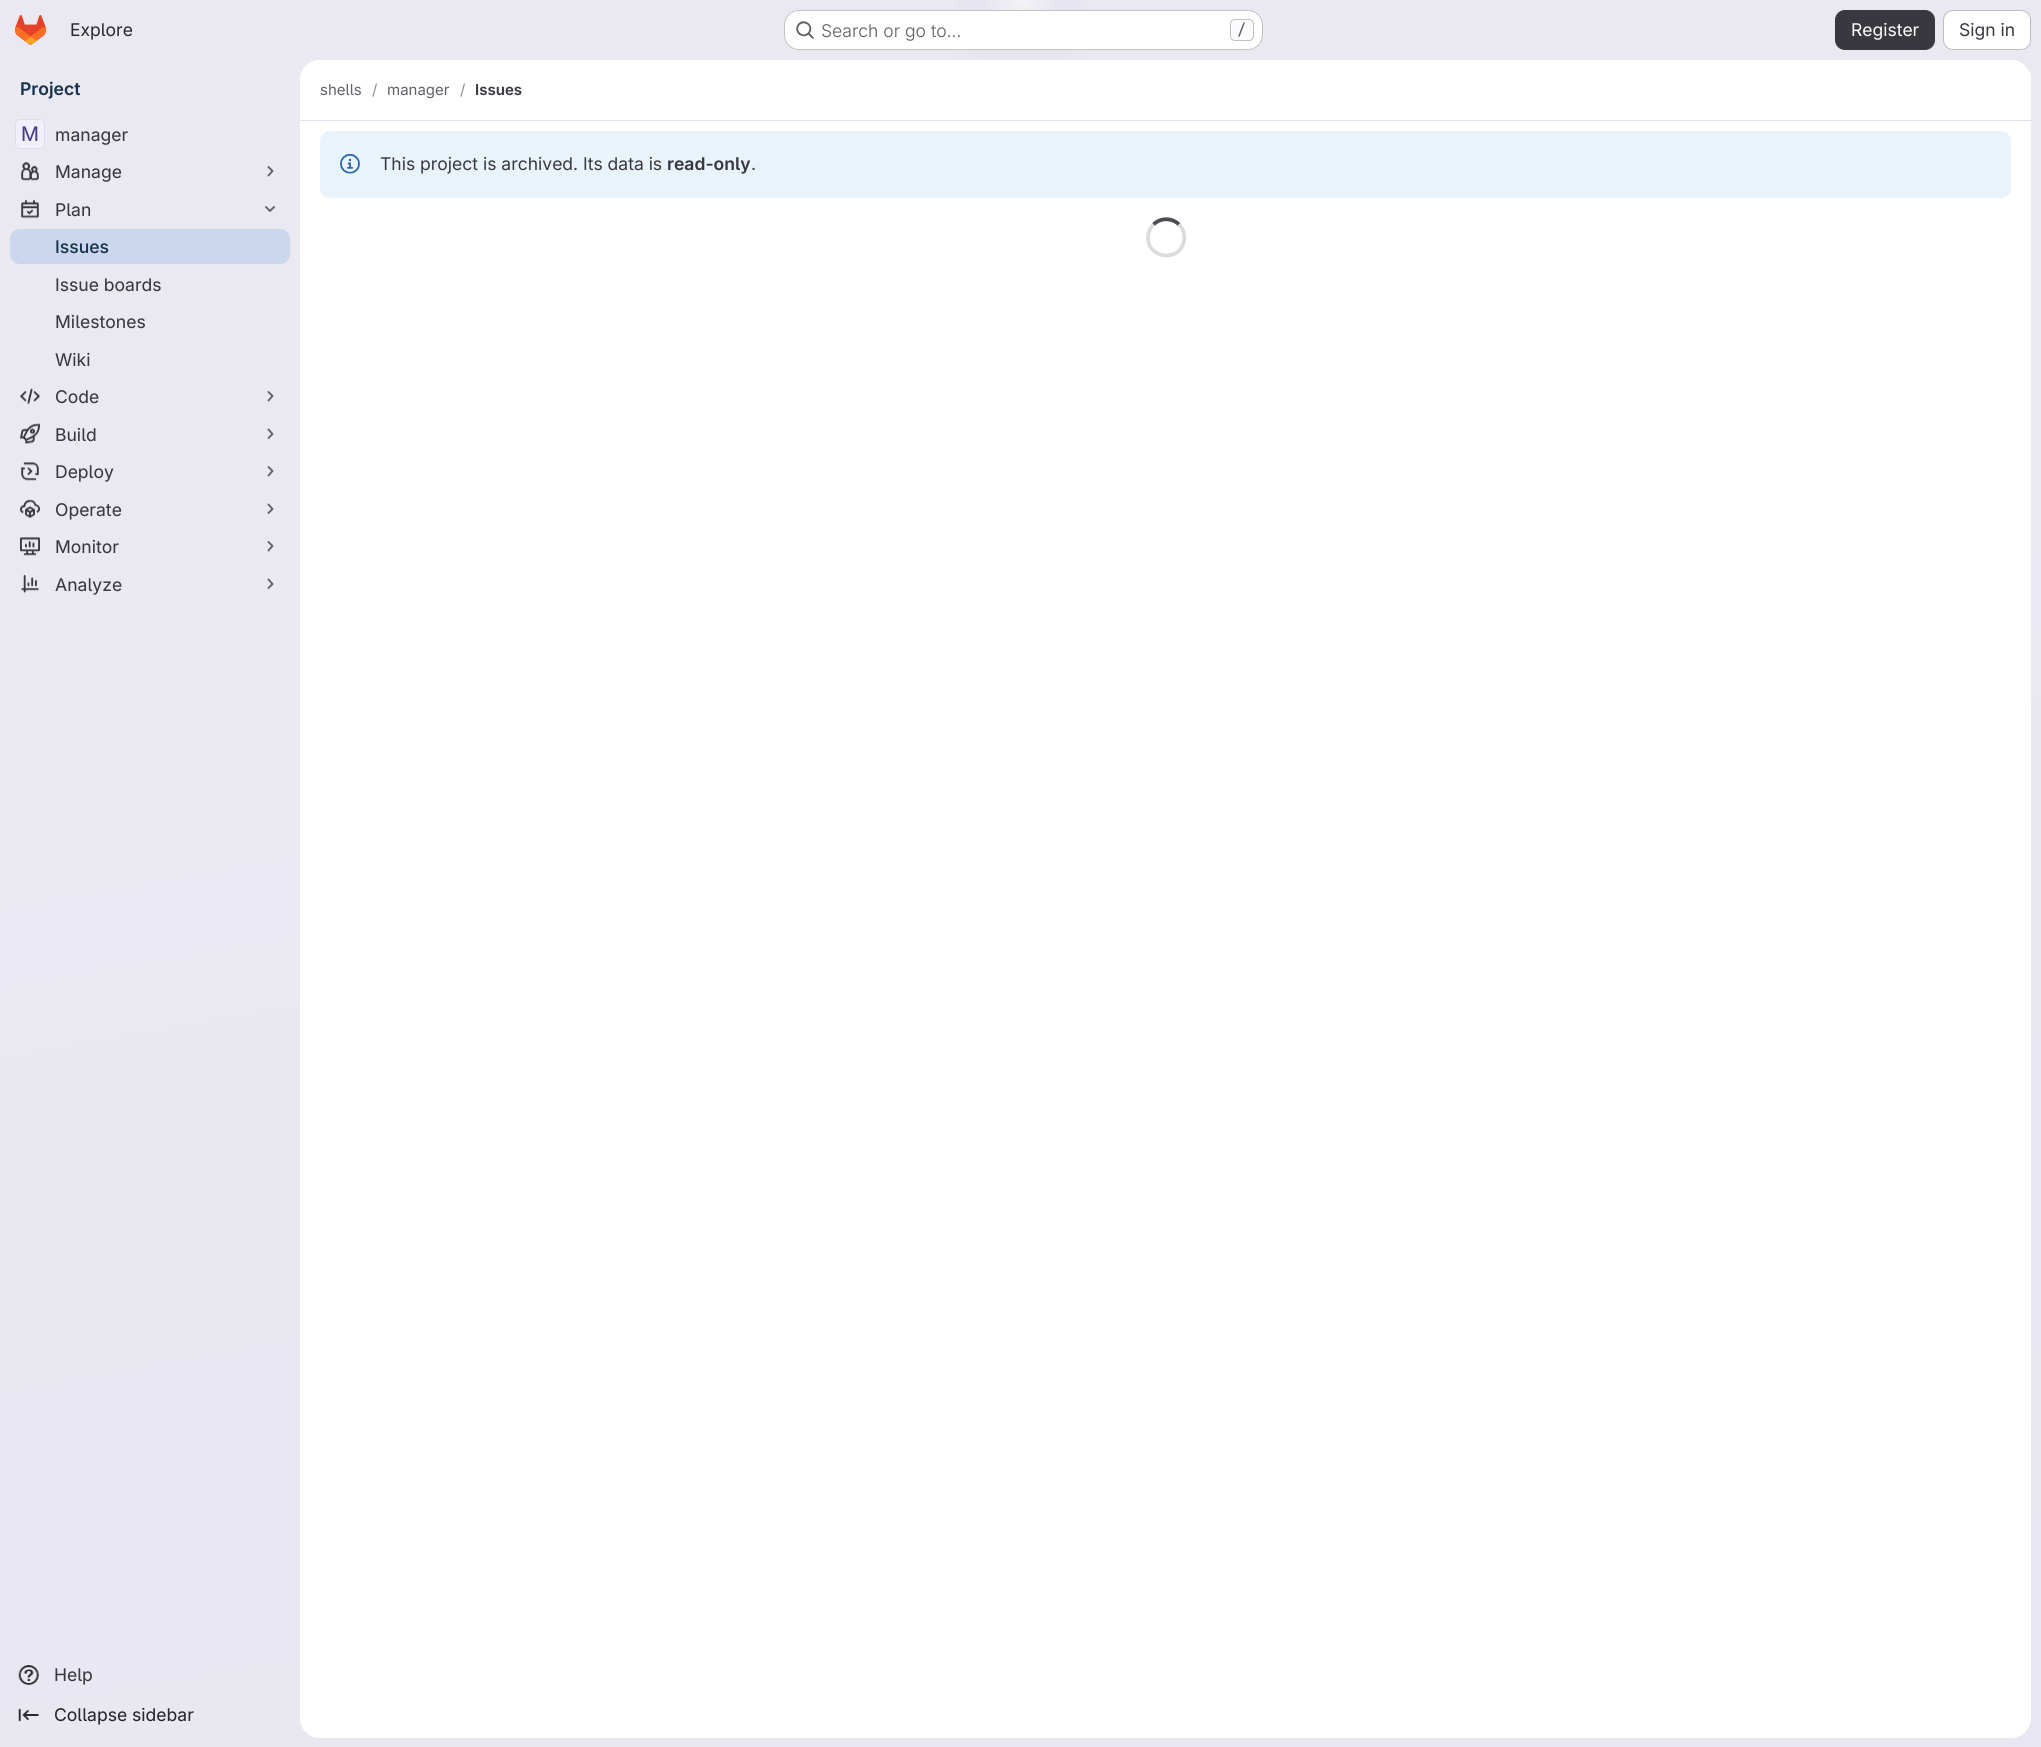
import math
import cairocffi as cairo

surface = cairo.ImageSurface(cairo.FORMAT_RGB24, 2041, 1747)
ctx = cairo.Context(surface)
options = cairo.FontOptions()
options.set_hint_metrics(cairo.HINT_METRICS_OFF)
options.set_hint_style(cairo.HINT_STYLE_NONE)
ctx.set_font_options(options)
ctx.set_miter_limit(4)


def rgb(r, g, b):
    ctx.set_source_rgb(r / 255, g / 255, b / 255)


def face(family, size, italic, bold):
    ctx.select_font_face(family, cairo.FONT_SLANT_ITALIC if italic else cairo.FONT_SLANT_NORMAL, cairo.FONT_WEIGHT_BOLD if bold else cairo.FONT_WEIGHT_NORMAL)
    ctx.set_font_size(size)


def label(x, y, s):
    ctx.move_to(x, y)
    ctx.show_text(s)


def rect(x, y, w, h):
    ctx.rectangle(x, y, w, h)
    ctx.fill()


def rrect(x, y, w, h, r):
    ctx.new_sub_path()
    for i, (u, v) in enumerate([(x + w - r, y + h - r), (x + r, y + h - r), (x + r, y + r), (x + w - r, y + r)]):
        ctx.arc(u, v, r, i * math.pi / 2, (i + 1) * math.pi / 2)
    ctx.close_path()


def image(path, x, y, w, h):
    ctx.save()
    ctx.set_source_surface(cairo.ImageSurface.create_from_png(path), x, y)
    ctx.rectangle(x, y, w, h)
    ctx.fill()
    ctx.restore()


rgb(255, 255, 255)
ctx.paint()
gradient = cairo.LinearGradient(1201, 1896, 840, -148)
gradient.add_color_stop_rgba(0, 0.91, 0.902, 0.941, 1)
gradient.add_color_stop_rgba(0.7, 0.918, 0.914, 0.949, 1)
ctx.set_source(gradient)
rect(0, 0, 2041, 1747)
gradient = cairo.RadialGradient(0, 0, 0, 0, 0, 1)
gradient.set_matrix(cairo.Matrix(1 / 1021, 0, 0, 1 / 1748, -1 * 1021 / 1021, -1 * 0 / 1748))
gradient.add_color_stop_rgba(0, 0.894, 0.886, 0.929, 1)
gradient.add_color_stop_rgba(0.09, 0.894, 0.886, 0.929, 0)
ctx.set_source(gradient)
rect(955, 0, 132, 60)
gradient = cairo.RadialGradient(0, 0, 0, 0, 0, 1)
gradient.set_matrix(cairo.Matrix(1 / 1021, 0, 0, 1 / 1748, -1 * 1021 / 1021, -1 * 0 / 1748))
gradient.add_color_stop_rgba(0, 0.894, 0.886, 0.925, 1)
gradient.add_color_stop_rgba(0.06, 0.894, 0.886, 0.925, 0)
ctx.set_source(gradient)
rect(1004, 1, 34, 31)
gradient = cairo.RadialGradient(1021, 0, 0, 1021, 0, 2024)
gradient.add_color_stop_rgba(0, 1, 1, 1, 0.6)
gradient.add_color_stop_rgba(0.02, 1, 1, 1, 0)
ctx.set_source(gradient)
rect(986, 0, 70, 10)
image('image0.png', 15, 15, 31, 30)
face('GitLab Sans', 17.5, 0, 0)
rgb(40, 39, 45)
label(70, 36, 'Explore')
rgb(255, 255, 255)
rrect(784, 10, 479, 40, 15)
ctx.fill()
rrect(784.5, 10.5, 478, 39, 14.5)
ctx.set_source_rgba(0.02, 0.02, 0.024, 0.24)
ctx.set_line_width(1)
ctx.stroke()
image('image1.png', 796, 21, 18, 18)
face('GitLab Sans Light', 17.5, 0, 0)
rgb(98, 97, 104)
label(821, 37, 'Search or go to…')
rgb(251, 250, 253)
rrect(1230.5, 19.5, 23, 21, 4.5)
ctx.fill_preserve()
rgb(191, 191, 195)
ctx.stroke()
face('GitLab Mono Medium', 15, 0, 0)
rgb(98, 97, 104)
label(1237, 35, '/')
rgb(58, 56, 63)
rrect(1835.5, 10.5, 99, 39, 9.5)
ctx.fill_preserve()
ctx.stroke()
face('GitLab Sans', 17.5, 0, 0)
rgb(255, 255, 255)
label(1851, 36, 'Register')
rrect(1943.5, 10.5, 87, 39, 9.5)
ctx.fill_preserve()
rgb(191, 191, 195)
ctx.stroke()
rgb(58, 56, 63)
label(1959, 36, 'Sign in')
face('GitLab Sans SemiBold', 17.5, 0, 0)
rgb(24, 51, 78)
label(20, 95, 'Project')
rgb(255, 255, 255)
rrect(15, 119, 30, 30, 5)
ctx.fill()
ctx.set_source_rgba(0.796, 0.733, 0.949, 0.24)
rrect(15, 119, 30, 30, 5)
ctx.fill()
rrect(15.5, 119.5, 29, 29, 4.5)
ctx.set_source_rgba(0.02, 0.02, 0.024, 0.08)
ctx.stroke()
face('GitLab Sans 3', 20, 0, 0)
rgb(73, 60, 131)
label(21, 141, 'M')
face('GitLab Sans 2', 17.5, 0, 0)
rgb(58, 56, 63)
label(55, 141, 'manager')
image('image2.png', 21, 162, 18, 19)
label(55, 178, 'Manage')
ctx.new_path()
ctx.move_to(268.5, 167)
ctx.line_to(272.5, 171)
ctx.line_to(268.5, 175.5)
rgb(98, 97, 104)
ctx.set_line_width(1.9)
ctx.set_line_cap(cairo.LINE_CAP_ROUND)
ctx.set_line_join(cairo.LINE_JOIN_ROUND)
ctx.stroke()
image('image3.png', 21, 199, 18, 20)
rgb(58, 56, 63)
label(55, 216, 'Plan')
ctx.new_path()
ctx.move_to(274, 207)
ctx.line_to(270, 211)
ctx.line_to(266, 207)
rgb(98, 97, 104)
ctx.stroke()
rgb(202, 215, 236)
rrect(10, 229, 280, 35, 10)
ctx.fill()
face('GitLab Sans Medium', 17.5, 0, 0)
rgb(24, 51, 78)
label(55, 253, 'Issues')
face('GitLab Sans 2', 17.5, 0, 0)
rgb(58, 56, 63)
label(55, 291, 'Issue boards')
label(55, 328, 'Milestones')
label(55, 366, 'Wiki')
image('image4.png', 20, 388, 20, 17)
label(55, 403, 'Code')
ctx.new_path()
ctx.move_to(268.5, 392)
ctx.line_to(272.5, 396)
ctx.line_to(268.5, 400.5)
rgb(98, 97, 104)
ctx.stroke()
image('image5.png', 20, 423, 20, 22)
rgb(58, 56, 63)
label(55, 441, 'Build')
ctx.new_path()
ctx.move_to(268.5, 429.5)
ctx.line_to(272.5, 434)
ctx.line_to(268.5, 438)
rgb(98, 97, 104)
ctx.stroke()
image('image6.png', 21, 462, 18, 19)
rgb(58, 56, 63)
label(55, 478, 'Deploy')
ctx.new_path()
ctx.move_to(268.5, 467)
ctx.line_to(272.5, 471)
ctx.line_to(268.5, 475.5)
rgb(98, 97, 104)
ctx.stroke()
image('image7.png', 20, 499, 20, 20)
rgb(58, 56, 63)
label(55, 516, 'Operate')
ctx.new_path()
ctx.move_to(268.5, 504.5)
ctx.line_to(272.5, 509)
ctx.line_to(268.5, 513)
rgb(98, 97, 104)
ctx.stroke()
image('image8.png', 20, 537, 20, 19)
rgb(58, 56, 63)
label(55, 553, 'Monitor')
ctx.new_path()
ctx.move_to(268.5, 542)
ctx.line_to(272.5, 546)
ctx.line_to(268.5, 550.5)
rgb(98, 97, 104)
ctx.stroke()
image('image9.png', 21, 574, 18, 20)
rgb(58, 56, 63)
label(55, 591, 'Analyze')
ctx.new_path()
ctx.move_to(268.5, 579.5)
ctx.line_to(272.5, 584)
ctx.line_to(268.5, 588)
rgb(98, 97, 104)
ctx.stroke()
image('image10.png', 18, 1665, 21, 20)
rgb(58, 56, 63)
label(54, 1681, 'Help')
image('image11.png', 18, 1708, 21, 14)
rgb(40, 39, 45)
label(54, 1721, 'Collapse sidebar')
rgb(255, 255, 255)
rrect(300, 60, 1731, 1678, 20)
ctx.fill()
ctx.new_path()
ctx.move_to(320, 60)
ctx.line_to(2011, 60)
ctx.curve_to(2022, 60, 2031, 69, 2031, 80)
ctx.line_to(2031, 121)
ctx.line_to(300, 121)
ctx.line_to(300, 80)
ctx.curve_to(300, 69, 309, 60, 320, 60)
ctx.close_path()
ctx.fill()
rgb(225, 223, 236)
rect(300, 120, 1731, 1)
face('GitLab Sans', 15, 0, 0)
rgb(98, 97, 104)
label(320, 95, 'shells')
rgb(137, 136, 141)
label(372, 95, '/')
rgb(98, 97, 104)
label(387, 95, 'manager')
rgb(137, 136, 141)
label(460, 95, '/')
face('GitLab Sans SemiBold', 15, 0, 0)
rgb(58, 56, 63)
label(475, 95, 'Issues')
rgb(233, 243, 252)
rrect(320, 131, 1691, 67, 10)
ctx.fill()
image('image12.png', 340, 153, 20, 21)
face('GitLab Sans', 17.5, 0, 0)
rgb(58, 56, 63)
label(380, 170, 'This project is archived. Its data is')
face('GitLab Sans SemiBold', 17.5, 0, 0)
label(667, 170, 'read-only')
face('GitLab Sans', 17.5, 0, 0)
label(751, 170, '.')
ctx.new_path()
ctx.move_to(1153.5, 224.5)
ctx.curve_to(1160.5, 217.5, 1172, 217.5, 1179, 224.5)
rgb(76, 75, 81)
ctx.set_line_width(3.8)
ctx.set_line_cap(cairo.LINE_CAP_BUTT)
ctx.set_line_join(cairo.LINE_JOIN_MITER)
ctx.stroke()
ctx.new_path()
ctx.move_to(1179, 224.5)
ctx.curve_to(1183.5, 229, 1185, 235, 1184, 241)
ctx.curve_to(1180, 262.5, 1148, 259, 1148, 237.5)
ctx.curve_to(1148, 232.5, 1150, 228, 1153.5, 224.5)
rgb(220, 220, 222)
ctx.stroke()
surface.write_to_png('render.png')
